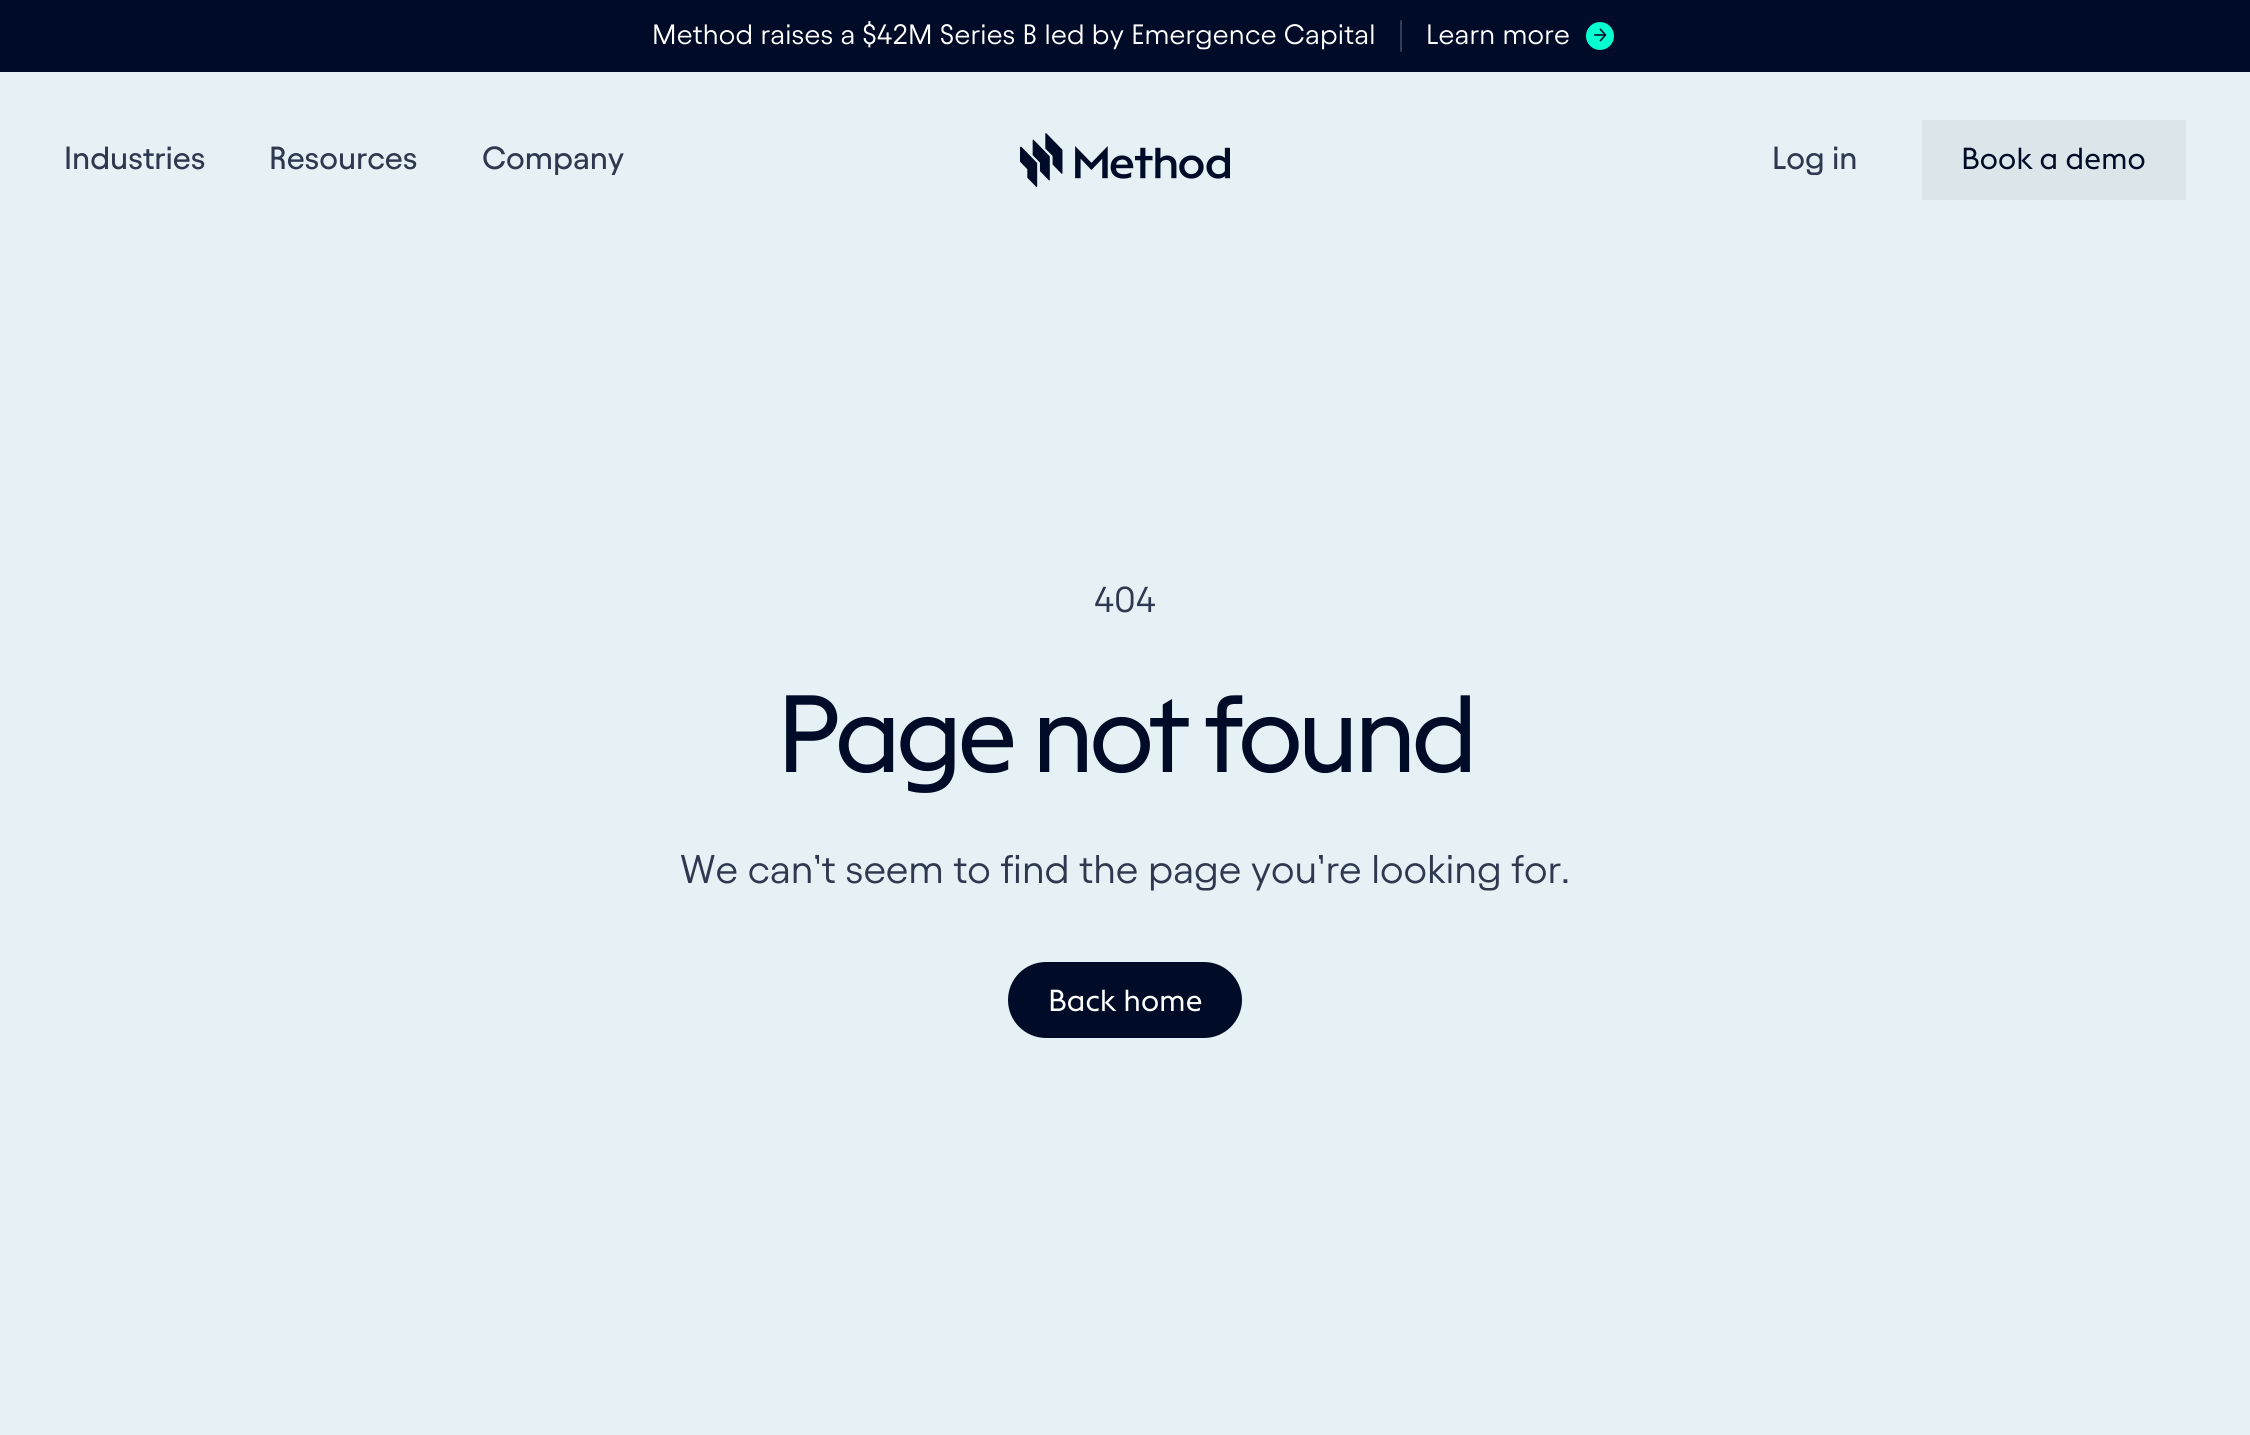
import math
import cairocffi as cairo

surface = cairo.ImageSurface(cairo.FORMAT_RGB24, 2250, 1435)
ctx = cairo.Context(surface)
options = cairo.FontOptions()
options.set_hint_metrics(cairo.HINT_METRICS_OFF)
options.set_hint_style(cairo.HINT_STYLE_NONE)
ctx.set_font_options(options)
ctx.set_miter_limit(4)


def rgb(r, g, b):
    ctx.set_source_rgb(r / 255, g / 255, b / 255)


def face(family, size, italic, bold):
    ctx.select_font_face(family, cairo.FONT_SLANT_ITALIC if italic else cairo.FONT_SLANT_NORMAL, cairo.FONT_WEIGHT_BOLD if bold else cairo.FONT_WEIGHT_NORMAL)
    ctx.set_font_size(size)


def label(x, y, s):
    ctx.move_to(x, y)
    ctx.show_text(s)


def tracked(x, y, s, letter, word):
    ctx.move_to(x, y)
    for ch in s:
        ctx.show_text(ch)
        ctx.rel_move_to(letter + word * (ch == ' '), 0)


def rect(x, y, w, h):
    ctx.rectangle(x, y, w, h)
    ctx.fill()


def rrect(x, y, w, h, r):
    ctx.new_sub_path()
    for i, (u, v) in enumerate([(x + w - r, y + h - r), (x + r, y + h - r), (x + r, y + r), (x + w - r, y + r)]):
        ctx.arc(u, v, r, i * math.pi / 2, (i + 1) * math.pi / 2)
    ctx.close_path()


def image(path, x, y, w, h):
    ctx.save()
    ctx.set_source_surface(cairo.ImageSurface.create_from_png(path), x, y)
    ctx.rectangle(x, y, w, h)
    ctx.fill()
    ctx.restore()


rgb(229, 241, 244)
ctx.paint()
rgb(0, 11, 39)
rect(0, 0, 2250, 72)
face('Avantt', 28, 0, 0)
rgb(255, 255, 255)
tracked(652, 44, 'Method raises a $42M Series B led by Emergence Capital', 0.28, 0)
rgb(51, 60, 82)
rrect(1400, 20, 2, 32, 1)
ctx.fill()
rgb(255, 255, 255)
tracked(1426, 44, 'Learn more', 0.28, 0)
rgb(6, 255, 209)
ctx.new_path()
ctx.arc(1600, 36, 14, 0, 2 * math.pi)
ctx.fill()
rgb(1, 60, 73)
rect(1594, 34, 11, 2)
ctx.new_path()
ctx.move_to(1600.5, 29.5)
ctx.line_to(1605.5, 35)
ctx.line_to(1600.5, 40.5)
rgb(0, 11, 39)
ctx.set_line_width(1.6)
ctx.set_line_cap(cairo.LINE_CAP_SQUARE)
ctx.set_line_join(cairo.LINE_JOIN_ROUND)
ctx.stroke()
face('Avantt Medium', 32, 0, 0)
rgb(46, 57, 80)
label(64, 169, 'Industries')
label(269, 169, 'Resources')
label(482, 169, 'Company')
image('image0.png', 1020, 133, 210, 54)
label(1772, 169, 'Log in')
ctx.set_source_rgba(0, 0.043, 0.153, 0.05)
rect(1922, 120, 264, 80)
face('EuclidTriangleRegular', 30, 0, 0)
rgb(0, 11, 39)
label(1961, 169, 'Book a demo')
face('Avantt', 36, 0, 0)
rgb(46, 57, 80)
label(1094, 612, '404')
face('EuclidTriangleRegular', 108, 0, 0)
rgb(0, 11, 39)
tracked(776, 772, 'Page not found', -6, 0)
face('Avantt', 40, 0, 0)
rgb(46, 57, 80)
label(680, 883, 'We can’t seem to find the page you’re looking for.')
rgb(0, 11, 39)
rrect(1008, 962, 234, 76, 38)
ctx.fill()
face('EuclidTriangleRegular', 30, 0, 0)
rgb(255, 255, 255)
label(1048, 1011, 'Back home')
surface.write_to_png('render.png')
